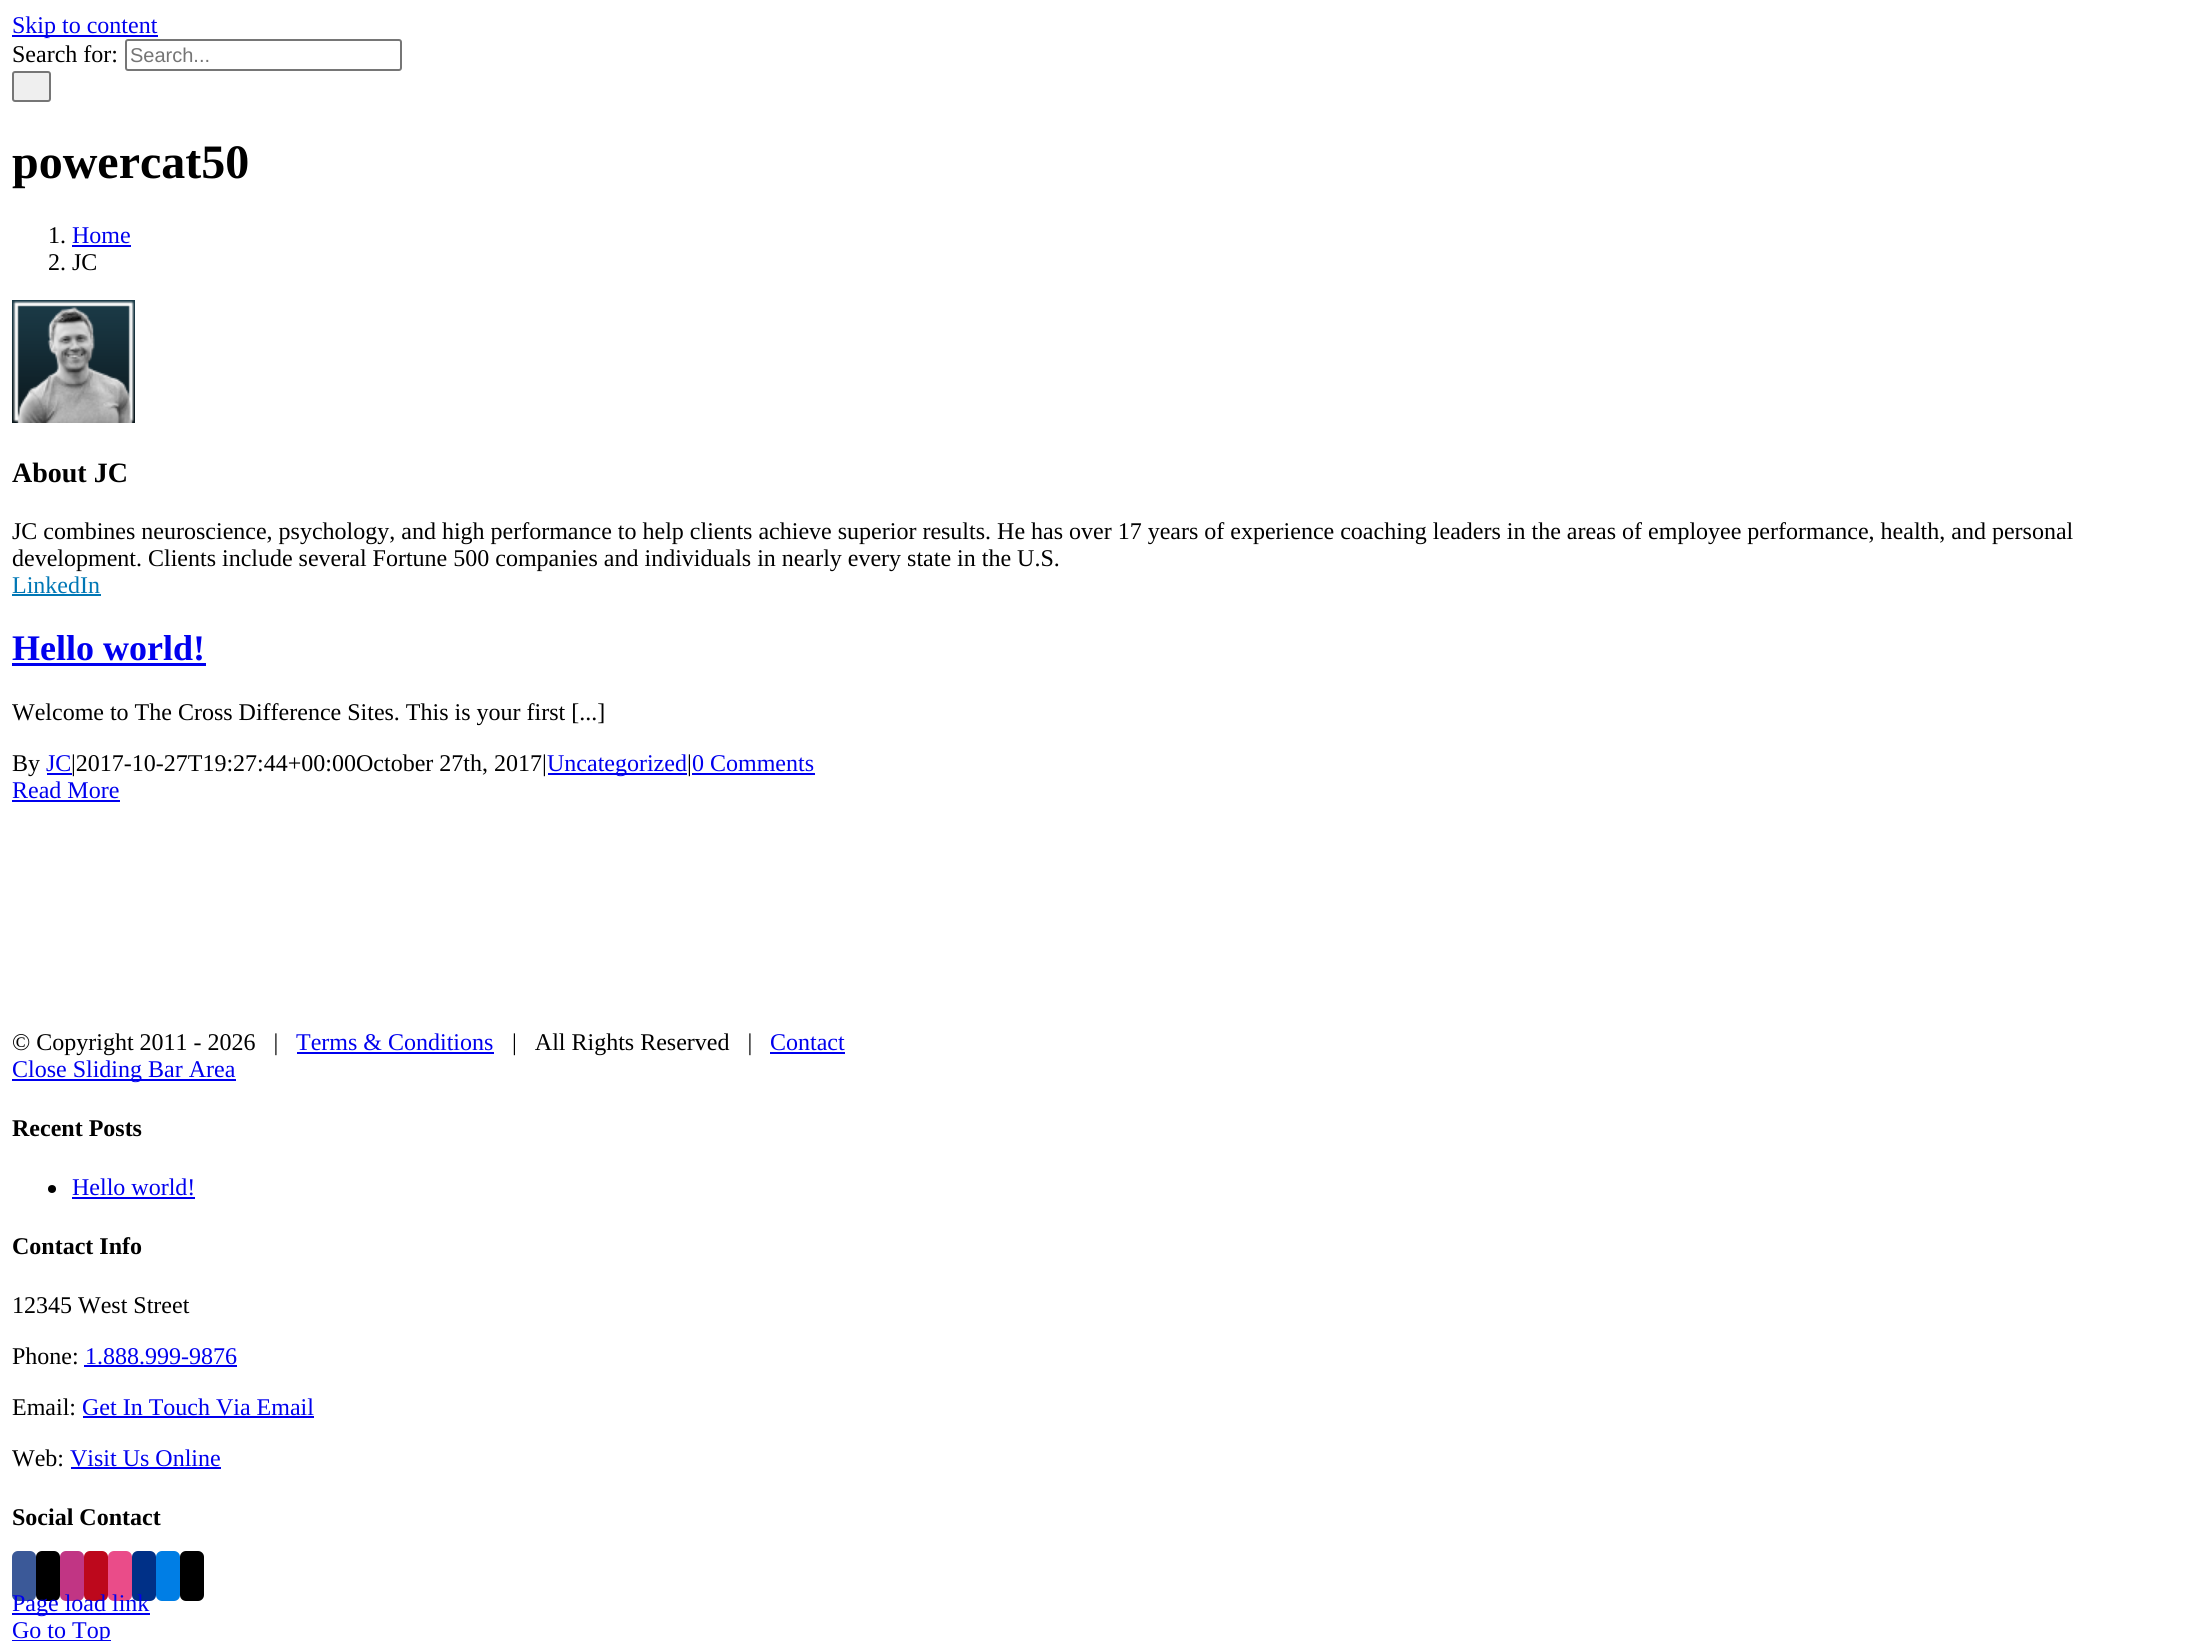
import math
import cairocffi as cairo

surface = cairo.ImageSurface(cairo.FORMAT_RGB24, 2200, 1641)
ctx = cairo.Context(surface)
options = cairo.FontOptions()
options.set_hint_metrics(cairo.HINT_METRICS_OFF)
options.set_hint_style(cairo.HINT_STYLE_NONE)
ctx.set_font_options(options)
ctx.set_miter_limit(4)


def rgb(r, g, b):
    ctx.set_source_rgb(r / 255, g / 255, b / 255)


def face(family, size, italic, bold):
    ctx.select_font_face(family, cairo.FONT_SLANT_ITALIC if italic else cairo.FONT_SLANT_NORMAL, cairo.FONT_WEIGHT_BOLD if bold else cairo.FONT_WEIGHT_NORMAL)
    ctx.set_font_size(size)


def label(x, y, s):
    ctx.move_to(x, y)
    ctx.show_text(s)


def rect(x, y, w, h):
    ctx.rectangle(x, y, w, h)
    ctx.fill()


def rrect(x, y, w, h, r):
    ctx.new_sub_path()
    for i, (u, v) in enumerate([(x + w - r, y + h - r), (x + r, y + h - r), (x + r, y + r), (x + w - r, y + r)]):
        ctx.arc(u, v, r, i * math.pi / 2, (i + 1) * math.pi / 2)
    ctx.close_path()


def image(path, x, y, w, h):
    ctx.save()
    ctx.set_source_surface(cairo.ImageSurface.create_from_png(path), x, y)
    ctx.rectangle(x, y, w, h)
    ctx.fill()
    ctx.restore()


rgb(255, 255, 255)
ctx.paint()
rgb(0, 0, 238)
rect(12, 35, 146, 2)
face('Liberation Serif', 24, 0, 0)
label(12, 33, 'Skip to content')
rgb(0, 0, 0)
label(12, 62, 'Search for:')
rrect(126, 40, 275, 30, 2)
rgb(118, 118, 118)
ctx.stroke()
face('Liberation Sans', 20, 0, 0)
rgb(117, 117, 117)
label(130, 62, 'Search...')
rgb(239, 239, 239)
rrect(13, 72, 37, 29, 2)
ctx.fill_preserve()
rgb(118, 118, 118)
ctx.stroke()
face('Liberation Serif', 48, 0, 1)
rgb(0, 0, 0)
label(12, 178, 'powercat50')
face('Liberation Serif', 24, 0, 0)
label(48, 243, '1.')
rgb(0, 0, 238)
label(72, 243, 'Home')
rect(72, 245, 59, 2)
rgb(0, 0, 0)
label(48, 270, '2. JC')
image('image0.png', 12, 300, 123, 123)
face('Liberation Serif', 28, 0, 1)
label(12, 482, 'About JC')
face('Liberation Serif', 24, 0, 0)
label(12, 539, 'JC combines neuroscience, psychology, and high performance to help clients achieve superior results. He has over 17 years of experience coaching leaders in the areas of employee performance, health, and personal')
label(12, 566, 'development. Clients include several Fortune 500 companies and individuals in nearly every state in the U.S.')
rgb(0, 119, 181)
label(12, 593, 'LinkedIn')
rect(12, 594, 89, 2)
face('Liberation Serif', 36, 0, 1)
rgb(0, 0, 238)
label(12, 660, 'Hello world!')
rect(12, 663, 194, 3)
face('Liberation Serif', 24, 0, 0)
rgb(0, 0, 0)
label(12, 720, 'Welcome to The Cross Difference Sites. This is your first [...]')
label(12, 771, 'By')
rgb(0, 0, 238)
label(46, 771, 'JC')
rect(47, 773, 25, 2)
rgb(0, 0, 0)
label(71, 771, '|2017-10-27T19:27:44+00:00October 27th, 2017|')
rgb(0, 0, 238)
rect(548, 773, 139, 2)
label(547, 771, 'Uncategorized')
rgb(0, 0, 0)
label(687, 771, '|')
rgb(0, 0, 238)
label(692, 771, '0 Comments')
rect(692, 773, 123, 2)
label(12, 798, 'Read More')
rect(12, 800, 108, 2)
rgb(0, 0, 0)
label(12, 1050, '© Copyright 2011 - 2026   |')
rgb(0, 0, 238)
label(296, 1050, 'Terms & Conditions')
rect(297, 1052, 197, 2)
rgb(0, 0, 0)
label(512, 1050, '|   All Rights Reserved   |')
rgb(0, 0, 238)
label(770, 1050, 'Contact')
rect(770, 1052, 75, 2)
rect(12, 1079, 224, 2)
label(12, 1077, 'Close Sliding Bar Area')
face('Liberation Serif', 24, 0, 1)
rgb(0, 0, 0)
label(12, 1136, 'Recent Posts')
ctx.new_path()
ctx.arc(52, 1189, 4, 0, 2 * math.pi)
ctx.fill()
face('Liberation Serif', 24, 0, 0)
rgb(0, 0, 238)
label(72, 1195, 'Hello world!')
rect(72, 1197, 123, 2)
face('Liberation Serif', 24, 0, 1)
rgb(0, 0, 0)
label(12, 1254, 'Contact Info')
face('Liberation Serif', 24, 0, 0)
label(12, 1313, '12345 West Street')
label(12, 1364, 'Phone:')
rgb(0, 0, 238)
label(85, 1364, '1.888.999-9876')
rect(84, 1365, 153, 2)
rgb(0, 0, 0)
label(12, 1415, 'Email:')
rgb(0, 0, 238)
label(82, 1415, 'Get In Touch Via Email')
rect(83, 1416, 231, 2)
rgb(0, 0, 0)
label(12, 1466, 'Web:')
rgb(0, 0, 238)
label(70, 1466, 'Visit Us Online')
rect(71, 1467, 150, 2)
face('Liberation Serif', 24, 0, 1)
rgb(0, 0, 0)
label(12, 1525, 'Social Contact')
rgb(59, 89, 152)
rrect(12, 1551, 24, 50, 6)
ctx.fill()
rgb(0, 0, 0)
rrect(36, 1551, 24, 50, 6)
ctx.fill()
rgb(193, 53, 132)
rrect(60, 1551, 24, 50, 6)
ctx.fill()
rgb(189, 8, 28)
rrect(84, 1551, 24, 50, 6)
ctx.fill()
rgb(234, 76, 137)
rrect(108, 1551, 24, 50, 6)
ctx.fill()
rgb(0, 48, 135)
rrect(132, 1551, 24, 50, 6)
ctx.fill()
rgb(0, 126, 229)
rrect(156, 1551, 24, 50, 6)
ctx.fill()
rgb(0, 0, 0)
rrect(180, 1551, 24, 50, 6)
ctx.fill()
rgb(0, 0, 238)
rect(12, 1613, 138, 2)
face('Liberation Serif', 24, 0, 0)
label(12, 1611, 'Page load link')
rect(12, 1640, 99, 1)
label(12, 1638, 'Go to Top')
surface.write_to_png('render.png')
